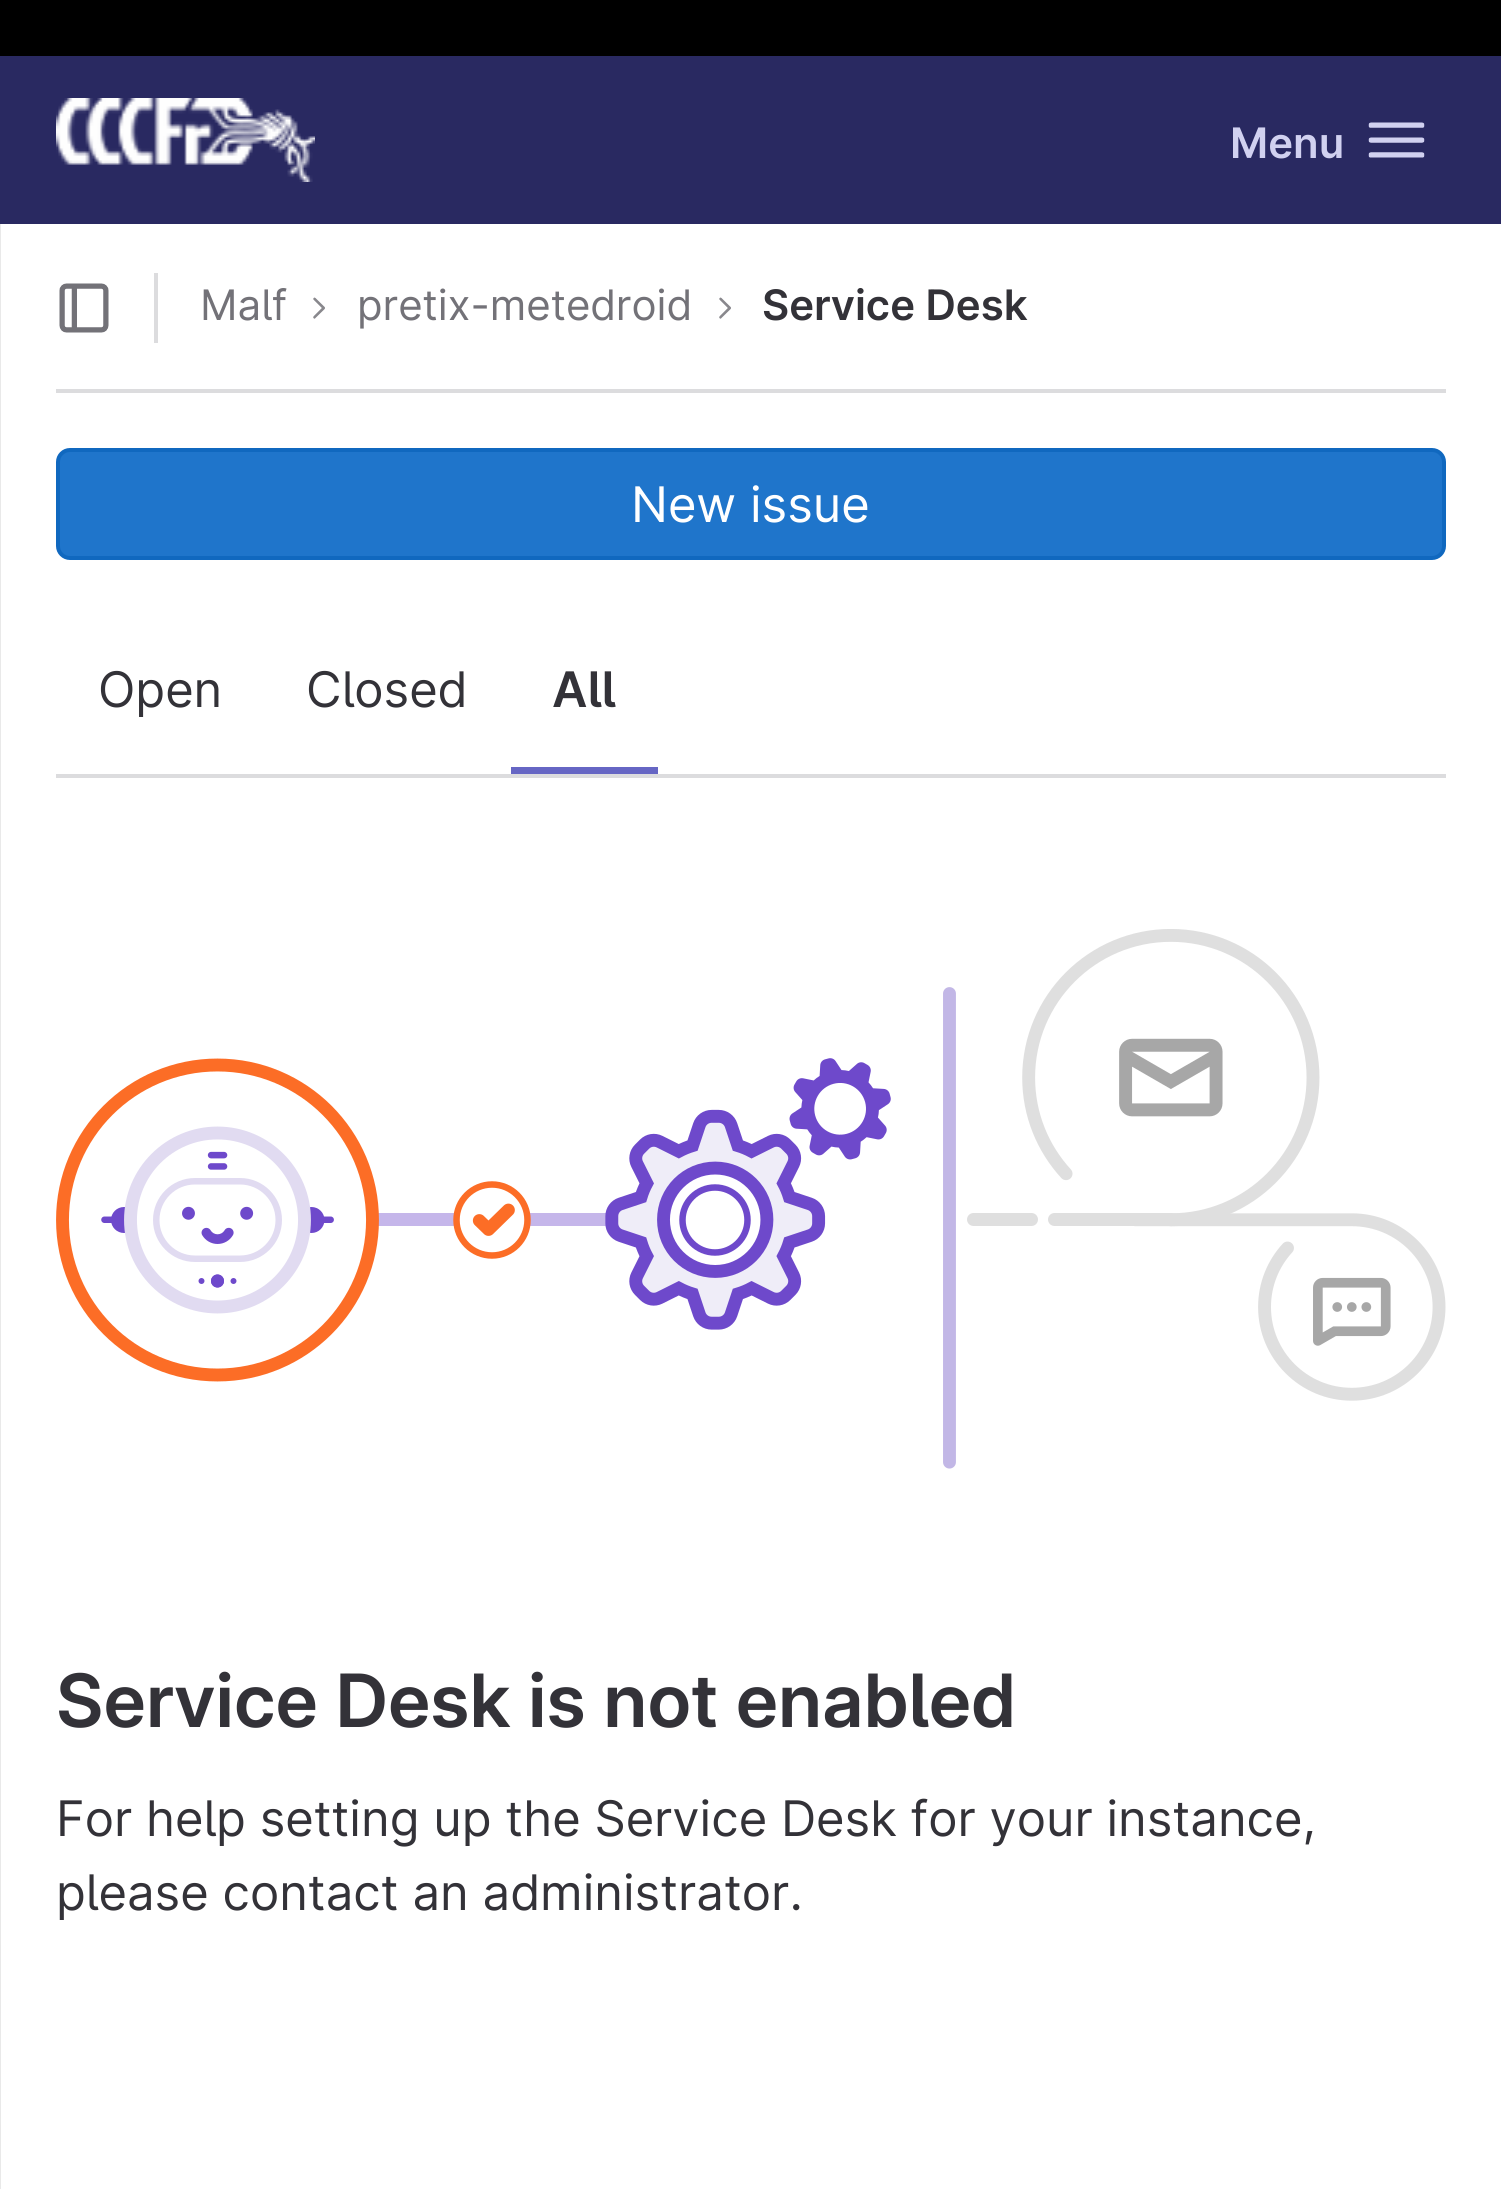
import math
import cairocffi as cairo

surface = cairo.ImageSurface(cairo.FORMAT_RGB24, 1501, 2189)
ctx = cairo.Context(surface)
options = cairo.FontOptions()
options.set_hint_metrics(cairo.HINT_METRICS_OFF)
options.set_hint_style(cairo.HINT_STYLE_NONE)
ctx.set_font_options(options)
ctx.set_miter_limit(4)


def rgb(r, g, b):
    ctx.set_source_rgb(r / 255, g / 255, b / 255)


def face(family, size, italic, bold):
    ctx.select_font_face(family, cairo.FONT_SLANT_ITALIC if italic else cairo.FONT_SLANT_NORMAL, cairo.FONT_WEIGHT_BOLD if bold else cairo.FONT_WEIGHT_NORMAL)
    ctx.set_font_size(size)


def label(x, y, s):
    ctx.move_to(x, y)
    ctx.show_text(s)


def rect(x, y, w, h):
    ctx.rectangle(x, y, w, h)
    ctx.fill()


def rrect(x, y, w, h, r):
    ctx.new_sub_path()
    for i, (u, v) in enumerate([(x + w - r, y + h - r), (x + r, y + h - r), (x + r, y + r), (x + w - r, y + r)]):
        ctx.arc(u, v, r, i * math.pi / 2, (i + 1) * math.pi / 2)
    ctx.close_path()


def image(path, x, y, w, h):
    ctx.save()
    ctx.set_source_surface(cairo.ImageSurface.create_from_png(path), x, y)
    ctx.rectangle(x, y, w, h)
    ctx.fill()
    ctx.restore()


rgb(255, 255, 255)
ctx.paint()
rgb(0, 0, 0)
rect(0, 0, 1501, 56)
rgb(41, 41, 97)
rect(0, 56, 1501, 168)
image('image0.png', 56, 98, 259, 84)
face('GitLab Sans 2 SemiBold', 42, 0, 0)
rgb(209, 209, 240)
label(1230, 158, 'Menu')
image('image1.png', 1368, 122, 57, 36)
rgb(233, 233, 233)
rect(0, 224, 1, 1965)
rgb(220, 220, 222)
rect(56, 389, 1390, 4)
image('image2.png', 59, 283, 50, 50)
rect(154, 273, 4, 70)
face('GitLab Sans', 42, 0, 0)
rgb(115, 114, 120)
label(200, 320, 'Malf')
image('image3.png', 313, 297, 12, 22)
label(357, 320, 'pretix-metedroid')
image('image4.png', 719, 297, 12, 22)
face('GitLab Sans 2 SemiBold', 42, 0, 0)
rgb(51, 50, 56)
label(762, 320, 'Service Desk')
rgb(220, 220, 222)
rect(56, 774, 1390, 4)
rgb(31, 117, 203)
rrect(58, 450, 1386, 108, 12)
ctx.fill_preserve()
rgb(16, 104, 191)
ctx.set_line_width(4)
ctx.stroke()
face('GitLab Sans', 49, 0, 0)
rgb(255, 255, 255)
label(631, 522, 'New issue')
rgb(51, 50, 56)
label(98, 707, 'Open')
label(306, 707, 'Closed')
rgb(102, 102, 196)
rect(511, 767, 147, 7)
face('GitLab Sans 2 SemiBold', 49, 0, 0)
rgb(51, 50, 56)
label(552, 707, 'All')
image('image5.png', 56, 929, 1390, 540)
face('GitLab Sans SemiBold', 73.5, 0, 0)
label(56, 1727, 'Service Desk is not enabled')
face('GitLab Sans', 49, 0, 0)
label(56, 1836, 'For help setting up the Service Desk for your instance,')
label(56, 1910, 'please contact an administrator.')
surface.write_to_png('render.png')
